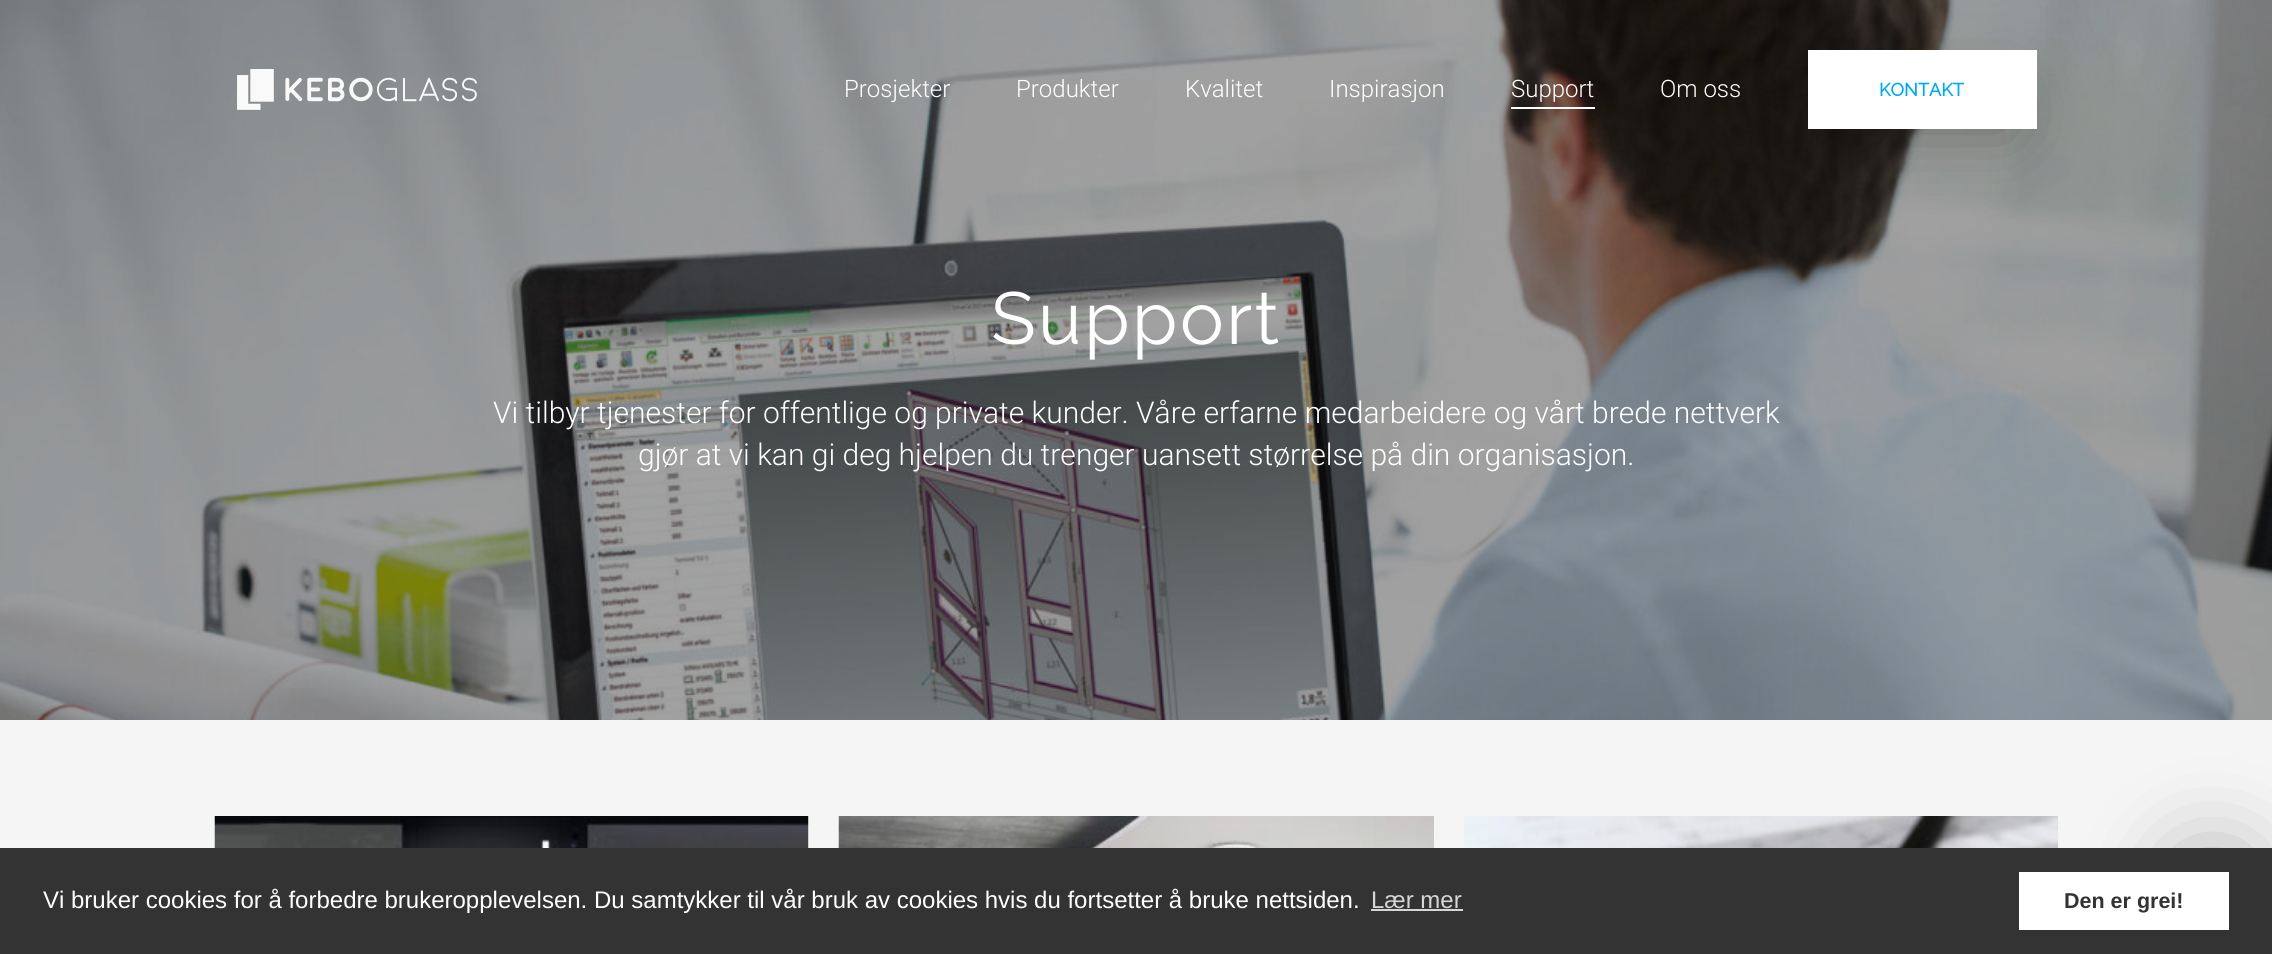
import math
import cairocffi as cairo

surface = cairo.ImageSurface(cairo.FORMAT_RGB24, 2272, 954)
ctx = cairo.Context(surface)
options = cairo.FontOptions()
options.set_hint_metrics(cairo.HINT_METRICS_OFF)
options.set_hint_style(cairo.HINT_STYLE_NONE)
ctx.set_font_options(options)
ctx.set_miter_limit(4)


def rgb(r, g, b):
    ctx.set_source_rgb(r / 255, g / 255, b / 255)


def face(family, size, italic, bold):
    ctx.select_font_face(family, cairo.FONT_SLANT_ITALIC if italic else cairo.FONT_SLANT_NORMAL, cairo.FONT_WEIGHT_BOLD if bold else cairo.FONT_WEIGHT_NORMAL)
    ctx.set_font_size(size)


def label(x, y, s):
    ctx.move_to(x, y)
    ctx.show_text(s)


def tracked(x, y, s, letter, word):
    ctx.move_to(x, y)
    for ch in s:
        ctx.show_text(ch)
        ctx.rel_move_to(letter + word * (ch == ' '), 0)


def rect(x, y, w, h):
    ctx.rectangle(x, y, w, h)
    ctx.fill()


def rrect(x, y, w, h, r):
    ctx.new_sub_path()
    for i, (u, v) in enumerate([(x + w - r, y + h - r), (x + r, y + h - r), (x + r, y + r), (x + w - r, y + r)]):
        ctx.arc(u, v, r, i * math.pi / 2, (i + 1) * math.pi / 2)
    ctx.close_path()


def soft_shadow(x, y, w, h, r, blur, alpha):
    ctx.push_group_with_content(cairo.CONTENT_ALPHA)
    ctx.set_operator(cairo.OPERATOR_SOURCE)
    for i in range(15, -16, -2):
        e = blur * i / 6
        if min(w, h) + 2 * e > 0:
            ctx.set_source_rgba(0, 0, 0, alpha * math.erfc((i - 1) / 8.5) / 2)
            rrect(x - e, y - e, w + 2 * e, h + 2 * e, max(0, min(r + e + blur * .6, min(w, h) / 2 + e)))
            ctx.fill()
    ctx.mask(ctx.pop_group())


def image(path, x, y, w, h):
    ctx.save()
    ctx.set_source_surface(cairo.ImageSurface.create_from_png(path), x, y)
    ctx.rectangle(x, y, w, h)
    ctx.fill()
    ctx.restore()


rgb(245, 245, 245)
ctx.paint()
image('image1.png', 0, 0, 2272, 720)
image('image0.png', 237, 69, 240, 41)
face('Roboto Light', 24, 0, 0)
rgb(255, 255, 255)
label(844, 97, 'Prosjekter')
label(1016, 97, 'Produkter')
label(1185, 97, 'Kvalitet')
label(1329, 97, 'Inspirasjon')
label(1511, 97, 'Support')
rect(1511, 107, 84, 2)
rgb(0, 0, 0)
soft_shadow(1836, 93, 173, 36, 0, 37, 0.3)
rgb(255, 255, 255)
label(1660, 97, 'Om oss')
rect(1808, 50, 229, 79)
face('Raleway', 18, 0, 1)
rgb(0, 169, 242)
label(1879, 96, 'KONTAKT')
face('Raleway Thin', 73.5, 0, 0)
rgb(255, 255, 255)
tracked(991, 344, 'Support', 2.5, 0)
face('Roboto Light', 30, 0, 0)
label(493, 423, 'Vi tilbyr tjenester for offentlige og private kunder. Våre erfarne medarbeidere og vårt brede nettverk')
label(638, 465, 'gjør at vi kan gi deg hjelpen du trenger uansett størrelse på din organisasjon.')
rect(808, 816, 1, 32)
image('image2.png', 214, 816, 595, 32)
image('image3.png', 838, 816, 596, 32)
image('image4.png', 1464, 816, 594, 32)
rgb(0, 0, 0)
soft_shadow(2175, 854, 75, 78, 37.5, 45, 0.3)
rgb(51, 51, 51)
rect(0, 848, 2272, 106)
face('Liberation Sans', 24, 0, 0)
rgb(255, 255, 255)
label(43, 908, 'Vi bruker cookies for å forbedre brukeropplevelsen. Du samtykker til vår bruk av cookies hvis du fortsetter å bruke nettsiden.')
rgb(214, 214, 214)
label(1371, 908, 'Lær mer')
rect(1371, 909, 92, 2)
rgb(255, 255, 255)
rect(2019, 872, 210, 58)
face('Liberation Sans', 21.5, 0, 1)
rgb(51, 51, 51)
label(2064, 908, 'Den er grei!')
surface.write_to_png('render.png')
